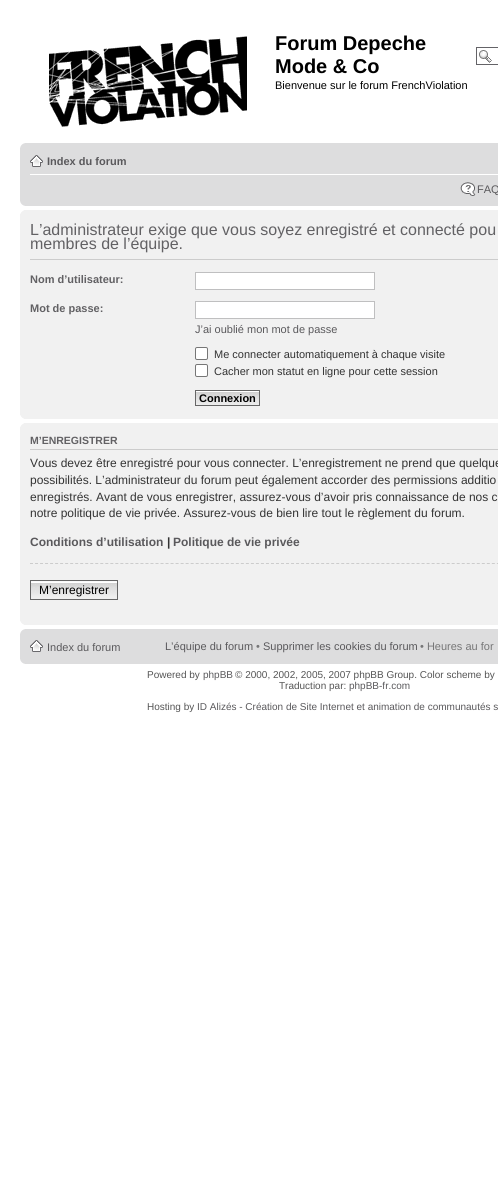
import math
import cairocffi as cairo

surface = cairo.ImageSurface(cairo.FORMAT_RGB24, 498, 1203)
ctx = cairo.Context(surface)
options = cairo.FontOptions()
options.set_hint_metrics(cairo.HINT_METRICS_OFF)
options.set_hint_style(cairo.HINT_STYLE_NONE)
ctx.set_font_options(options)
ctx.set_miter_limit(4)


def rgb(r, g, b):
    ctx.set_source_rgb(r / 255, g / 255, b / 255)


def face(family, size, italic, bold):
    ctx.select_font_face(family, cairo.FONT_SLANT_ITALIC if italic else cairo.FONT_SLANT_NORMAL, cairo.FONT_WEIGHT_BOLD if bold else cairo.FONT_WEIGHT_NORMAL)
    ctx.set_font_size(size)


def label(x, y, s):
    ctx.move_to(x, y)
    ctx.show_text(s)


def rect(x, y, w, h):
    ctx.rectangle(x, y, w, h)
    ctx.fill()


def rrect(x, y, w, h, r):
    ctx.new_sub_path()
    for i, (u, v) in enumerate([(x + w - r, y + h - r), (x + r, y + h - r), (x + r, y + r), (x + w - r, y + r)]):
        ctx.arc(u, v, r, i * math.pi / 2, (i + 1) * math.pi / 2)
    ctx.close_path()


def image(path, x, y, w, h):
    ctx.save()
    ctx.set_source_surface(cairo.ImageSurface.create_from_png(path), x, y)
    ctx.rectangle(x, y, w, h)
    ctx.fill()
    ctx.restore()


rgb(255, 255, 255)
ctx.paint()
image('image0.png', 49, 36, 198, 91)
face('Liberation Sans', 20, 0, 1)
rgb(0, 0, 0)
label(275, 50, 'Forum Depeche')
label(275, 73, 'Mode & Co')
face('Liberation Sans', 11, 0, 0)
label(275, 89, 'Bienvenue sur le forum FrenchViolation')
image('image1.png', 479, 50, 13, 13)
ctx.rectangle(476.5, 47.5, 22, 17)
rgb(100, 99, 103)
ctx.set_line_width(1)
ctx.stroke()
rgb(221, 221, 222)
rect(20, 143, 478, 63)
image('image2.png', 20, 143, 5, 5)
rgb(255, 255, 255)
rect(30, 174, 468, 1)
image('image3.png', 30, 155, 13, 12)
face('Liberation Sans', 11, 0, 1)
rgb(90, 89, 92)
label(47, 165, 'Index du forum')
image('image4.png', 460, 182, 16, 14)
face('Liberation Sans', 11, 0, 0)
label(477, 193, 'FAQ')
image('image5.png', 20, 201, 5, 5)
rgb(241, 241, 241)
rect(20, 210, 478, 209)
image('image6.png', 20, 210, 4, 4)
rgb(204, 204, 204)
rect(30, 259, 468, 1)
face('Liberation Sans', 16, 0, 0)
rgb(98, 97, 100)
label(30, 235, 'L’administrateur exige que vous soyez enregistré et connecté pou')
label(30, 249, 'membres de l’équipe.')
face('Liberation Sans', 11, 0, 1)
label(30, 283, 'Nom d’utilisateur:')
rgb(255, 255, 255)
ctx.rectangle(195.5, 272.5, 179, 17)
ctx.fill_preserve()
rgb(191, 191, 192)
ctx.stroke()
rgb(98, 97, 100)
label(30, 312, 'Mot de passe:')
rgb(255, 255, 255)
ctx.rectangle(195.5, 301.5, 179, 17)
ctx.fill_preserve()
rgb(191, 191, 192)
ctx.stroke()
face('Liberation Sans', 11, 0, 0)
rgb(90, 89, 92)
label(195, 333, 'J’ai oublié mon mot de passe')
rgb(255, 255, 255)
rrect(195.5, 347.5, 12, 12, 1.5)
ctx.fill_preserve()
rgb(118, 118, 118)
ctx.stroke()
rgb(51, 51, 51)
label(214, 358, 'Me connecter automatiquement à chaque visite')
rgb(255, 255, 255)
rrect(195.5, 364.5, 12, 12, 1.5)
ctx.fill_preserve()
rgb(118, 118, 118)
ctx.stroke()
rgb(51, 51, 51)
label(214, 375, 'Cacher mon statut en ligne pour cette session')
image('image7.png', 196, 391, 63, 14)
ctx.rectangle(195.5, 390.5, 64, 15)
rgb(102, 102, 102)
ctx.stroke()
face('Liberation Sans', 11, 0, 1)
rgb(0, 0, 0)
label(199, 402, 'Connexion')
image('image8.png', 20, 415, 4, 4)
rgb(241, 241, 241)
rect(20, 423, 478, 202)
image('image6.png', 20, 423, 4, 4)
rgb(204, 204, 204)
rect(30, 449, 468, 1)
face('Liberation Sans', 10.5, 0, 1)
rgb(98, 97, 100)
label(30, 444, 'M’ENREGISTRER')
face('Liberation Sans', 12, 0, 0)
rgb(51, 51, 51)
label(30, 467, 'Vous devez être enregistré pour vous connecter. L’enregistrement ne prend que quelque')
label(30, 484, 'possibilités. L’administrateur du forum peut également accorder des permissions additio')
label(30, 501, 'enregistrés. Avant de vous enregistrer, assurez-vous d’avoir pris connaissance de nos c')
label(30, 517, 'notre politique de vie privée. Assurez-vous de bien lire tout le règlement du forum.')
face('Liberation Sans', 12, 0, 1)
rgb(90, 89, 92)
label(30, 546, 'Conditions d’utilisation')
rgb(51, 51, 51)
label(167, 546, '|')
rgb(90, 89, 92)
label(173, 546, 'Politique de vie privée')
ctx.new_path()
ctx.move_to(30, 563.5)
ctx.line_to(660, 563.5)
rgb(204, 204, 204)
ctx.set_dash([3, 2.02])
ctx.stroke()
image('image9.png', 31, 582, 86, 17)
rgb(250, 250, 250)
rect(31, 581, 86, 1)
ctx.rectangle(30.5, 580.5, 87, 19)
rgb(102, 102, 102)
ctx.set_dash([])
ctx.stroke()
face('Liberation Sans', 12, 0, 0)
rgb(0, 0, 0)
label(39, 594, 'M’enregistrer')
image('image8.png', 20, 621, 4, 4)
rgb(221, 221, 222)
rect(20, 629, 478, 35)
image('image2.png', 20, 629, 5, 5)
image('image3.png', 30, 640, 13, 12)
face('Liberation Sans', 11, 0, 0)
rgb(90, 89, 92)
label(47, 651, 'Index du forum')
label(165, 650, 'L’équipe du forum')
rgb(118, 118, 119)
label(256, 650, '•')
rgb(90, 89, 92)
label(263, 650, 'Supprimer les cookies du forum')
rgb(118, 118, 119)
label(420, 650, '• Heures au for')
image('image5.png', 20, 659, 5, 5)
face('Liberation Sans', 10, 0, 0)
rgb(85, 85, 85)
label(147, 678, 'Powered by')
rgb(90, 89, 92)
label(203, 678, 'phpBB')
rgb(85, 85, 85)
label(235, 678, '© 2000, 2002, 2005, 2007 phpBB Group. Color scheme by')
label(279, 689, 'Traduction par:')
rgb(90, 89, 92)
label(349, 689, 'phpBB-fr.com')
rgb(85, 85, 85)
label(147, 710, 'Hosting by')
rgb(90, 89, 92)
label(197, 710, 'ID Alizés - Création de Site Internet et animation de communautés s')
surface.write_to_png('render.png')
